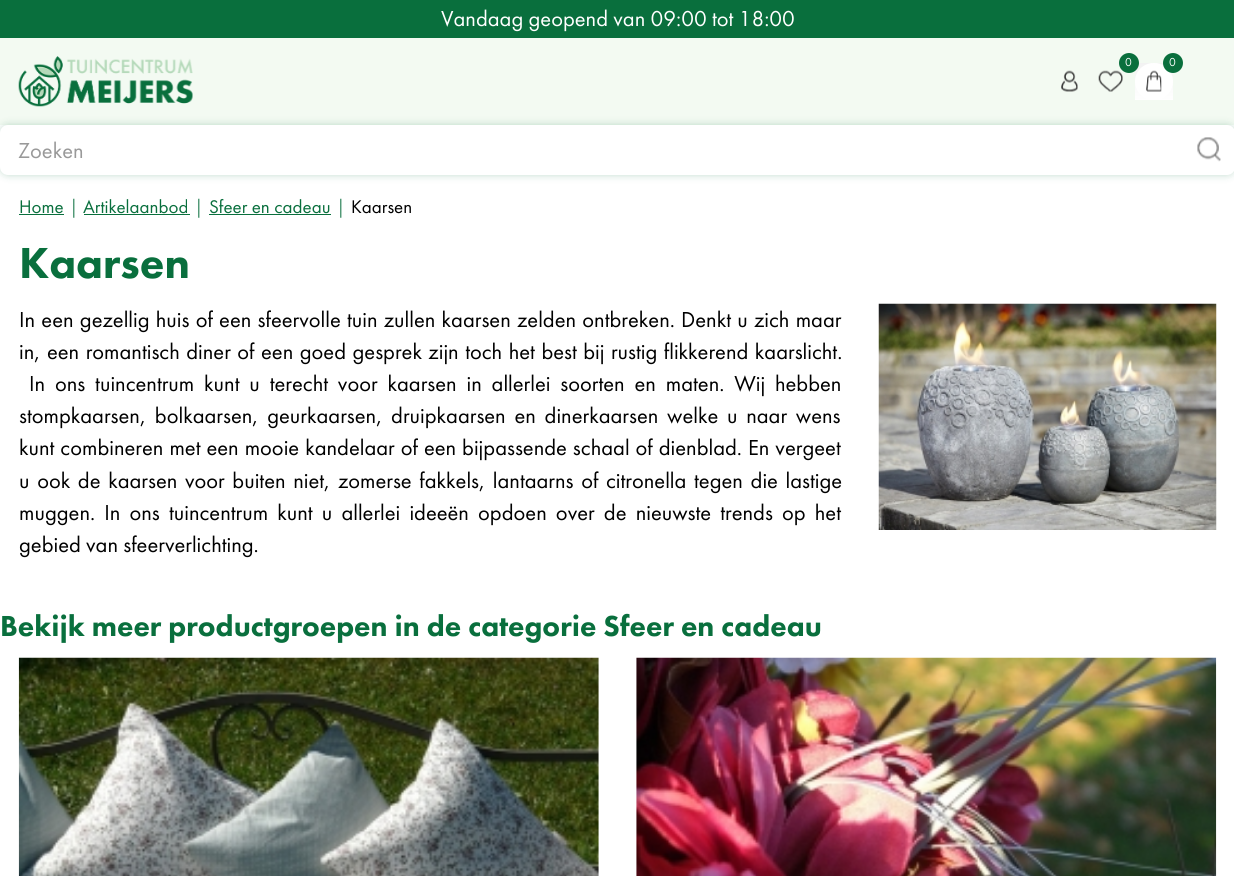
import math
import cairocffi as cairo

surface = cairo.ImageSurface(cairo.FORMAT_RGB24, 1234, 876)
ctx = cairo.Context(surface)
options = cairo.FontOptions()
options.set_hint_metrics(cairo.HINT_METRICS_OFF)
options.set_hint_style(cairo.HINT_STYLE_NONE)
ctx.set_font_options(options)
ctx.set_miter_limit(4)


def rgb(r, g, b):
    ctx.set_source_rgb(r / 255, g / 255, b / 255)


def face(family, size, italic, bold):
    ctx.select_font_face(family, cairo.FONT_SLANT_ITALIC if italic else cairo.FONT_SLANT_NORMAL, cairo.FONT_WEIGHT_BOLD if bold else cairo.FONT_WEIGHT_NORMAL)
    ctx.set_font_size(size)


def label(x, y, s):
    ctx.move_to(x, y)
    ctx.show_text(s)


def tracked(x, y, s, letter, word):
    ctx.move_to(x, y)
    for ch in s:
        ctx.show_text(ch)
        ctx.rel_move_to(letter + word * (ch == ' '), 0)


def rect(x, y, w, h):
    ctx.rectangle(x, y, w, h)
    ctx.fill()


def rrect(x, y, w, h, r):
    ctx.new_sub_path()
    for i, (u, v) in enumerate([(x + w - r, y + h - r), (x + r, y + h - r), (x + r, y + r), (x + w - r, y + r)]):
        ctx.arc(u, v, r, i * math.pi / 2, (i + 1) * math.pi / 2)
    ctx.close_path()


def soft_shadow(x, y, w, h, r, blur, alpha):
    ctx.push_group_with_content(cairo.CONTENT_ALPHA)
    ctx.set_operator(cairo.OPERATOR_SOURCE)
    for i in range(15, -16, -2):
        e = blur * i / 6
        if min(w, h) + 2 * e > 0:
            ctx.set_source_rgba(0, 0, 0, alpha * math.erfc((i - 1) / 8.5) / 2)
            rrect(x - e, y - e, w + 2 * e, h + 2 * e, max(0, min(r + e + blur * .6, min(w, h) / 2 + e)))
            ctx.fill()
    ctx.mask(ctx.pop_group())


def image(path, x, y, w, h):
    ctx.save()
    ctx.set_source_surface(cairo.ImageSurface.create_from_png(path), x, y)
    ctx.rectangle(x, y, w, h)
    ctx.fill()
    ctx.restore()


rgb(255, 255, 255)
ctx.paint()
rgb(9, 111, 61)
rect(0, 0, 1234, 38)
face('Futura PT', 22.5, 0, 0)
rgb(255, 255, 255)
label(441, 26, 'Vandaag geopend van 09:00 tot 18:00')
rgb(243, 250, 242)
rect(0, 38, 1234, 87)
image('image0.png', 18, 56, 175, 51)
image('image1.png', 1098, 70, 25, 22)
gradient = cairo.LinearGradient(1154, 63, 1154, 100)
gradient.add_color_stop_rgba(0, 0.949, 0.949, 0.949, 1)
gradient.add_color_stop_rgba(1, 1, 1, 1, 1)
ctx.set_source(gradient)
rect(1135, 63, 38, 37)
rgb(255, 255, 255)
rrect(1135, 63, 38, 37, 18.5)
ctx.fill()
rgb(9, 111, 61)
ctx.arc(1129, 63, 10, 0, 2 * math.pi)
ctx.fill()
face('Futura PT', 12, 0, 0)
rgb(255, 255, 255)
label(1125, 66, '0')
image('image2.png', 1146, 70, 16, 22)
rgb(9, 111, 61)
ctx.arc(1173, 63, 10, 0, 2 * math.pi)
ctx.fill()
rgb(255, 255, 255)
label(1169, 66, '0')
image('image3.png', 1061, 70, 17, 22)
rgb(9, 111, 61)
soft_shadow(0, 125, 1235, 50, 8, 4, 0.25)
rgb(255, 255, 255)
rrect(0, 125, 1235, 50, 8)
ctx.fill()
face('Futura PT', 22.5, 0, 0)
rgb(153, 153, 153)
label(18, 158, 'Zoeken')
image('image4.png', 1197, 137, 24, 25)
face('Futura PT Black', 45, 0, 0)
rgb(9, 111, 61)
label(19, 278, 'Kaarsen')
face('Futura PT', 22.5, 0, 0)
rgb(0, 0, 0)
tracked(19, 327, 'In een gezellig huis of een sfeervolle tuin zullen kaarsen zelden ontbreken. Denkt u zich maar', 0, 1)
tracked(19, 359, 'in, een romantisch diner of een goed gesprek zijn toch het best bij rustig flikkerend kaarslicht.', 0, 1.25)
tracked(29, 391, 'In ons tuincentrum kunt u terecht voor kaarsen in allerlei soorten en maten. Wij hebben', 0, 4.6)
tracked(19, 423, 'stompkaarsen, bolkaarsen, geurkaarsen, druipkaarsen en dinerkaarsen welke u naar wens', 0, 3.5)
tracked(19, 455, 'kunt combineren met een mooie kandelaar of een bijpassende schaal of dienblad. En vergeet', 0, 0.75)
tracked(19, 488, 'u ook de kaarsen voor buiten niet, zomerse fakkels, lantaarns of citronella tegen die lastige', 0, 2.4)
tracked(19, 520, 'muggen. In ons tuincentrum kunt u allerlei ideeën opdoen over de nieuwste trends op het', 0, 3.9)
label(19, 552, 'gebied van sfeerverlichting.')
image('image5.png', 878, 303, 339, 227)
face('Futura PT Black', 30, 0, 0)
rgb(9, 111, 61)
label(0, 636, 'Bekijk meer productgroepen in de categorie Sfeer en cadeau')
image('image6.png', 18, 657, 581, 219)
image('image7.png', 636, 657, 581, 219)
face('Futura PT', 19, 0, 0)
label(19, 213, 'Home')
rect(19, 214, 45, 1)
rgb(71, 147, 110)
label(69, 213, '|')
rgb(9, 111, 61)
label(83, 213, 'Artikelaanbod')
rect(84, 214, 106, 1)
rgb(71, 147, 110)
label(194, 213, '|')
rgb(9, 111, 61)
label(209, 213, 'Sfeer en cadeau')
rect(209, 214, 122, 1)
rgb(71, 147, 110)
label(336, 213, '|')
rgb(0, 0, 0)
label(351, 213, 'Kaarsen')
surface.write_to_png('render.png')
